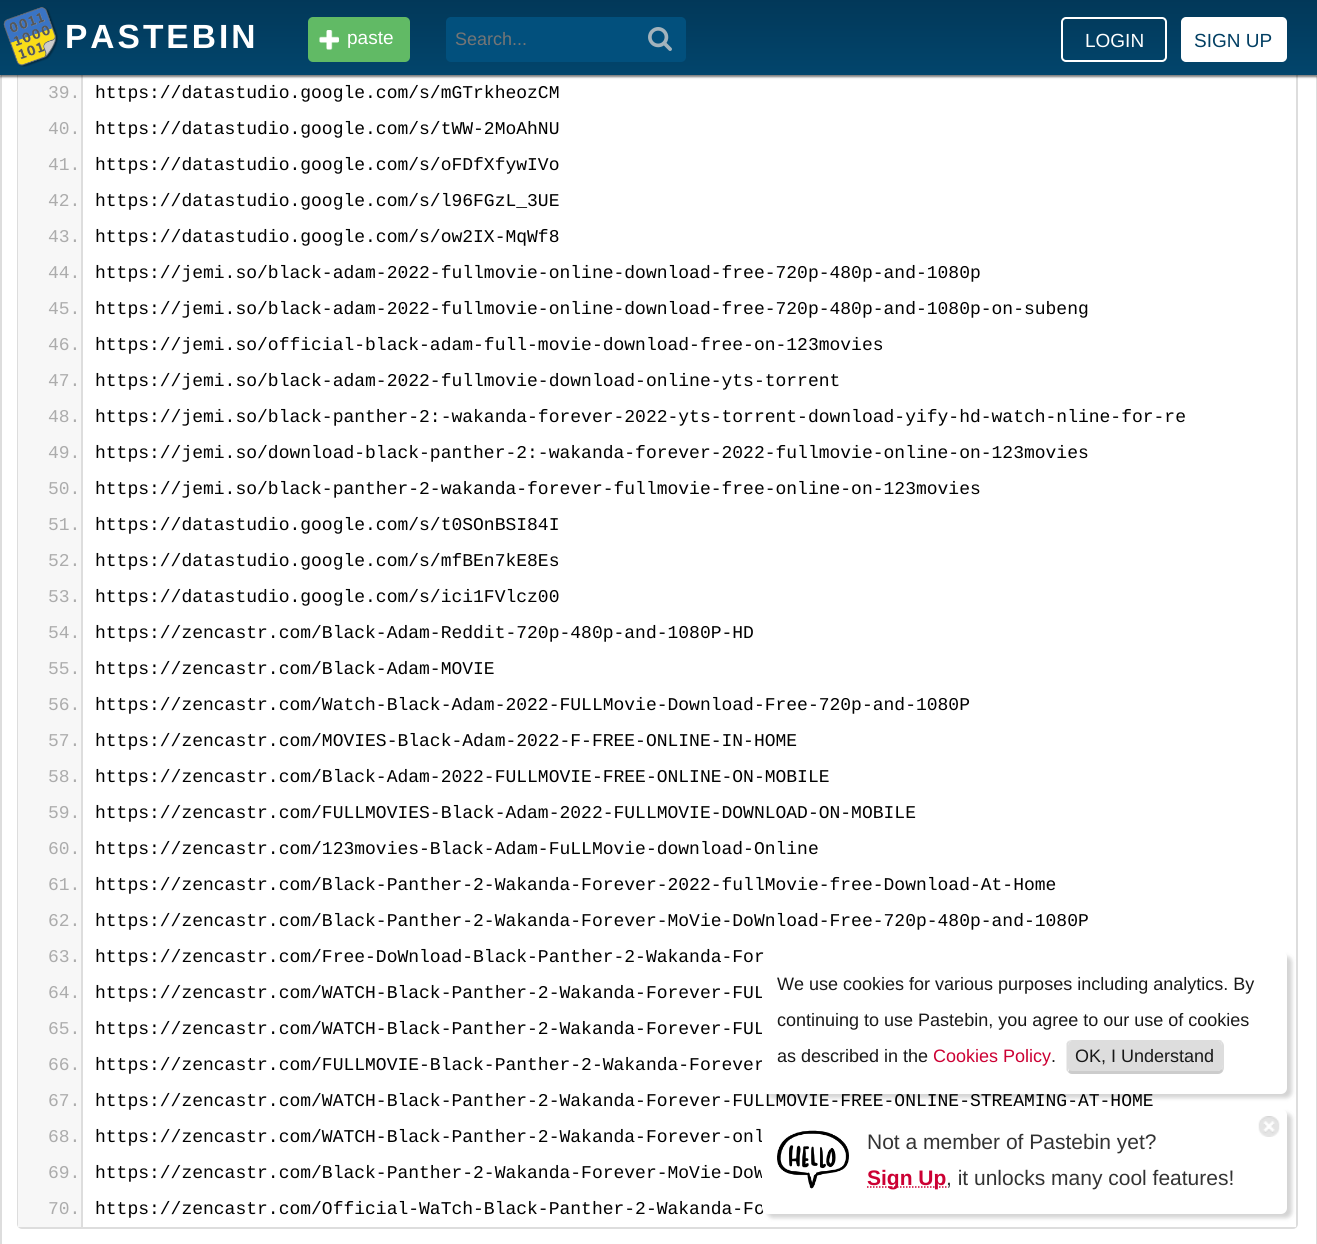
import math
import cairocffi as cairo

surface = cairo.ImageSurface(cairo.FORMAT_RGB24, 1317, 1244)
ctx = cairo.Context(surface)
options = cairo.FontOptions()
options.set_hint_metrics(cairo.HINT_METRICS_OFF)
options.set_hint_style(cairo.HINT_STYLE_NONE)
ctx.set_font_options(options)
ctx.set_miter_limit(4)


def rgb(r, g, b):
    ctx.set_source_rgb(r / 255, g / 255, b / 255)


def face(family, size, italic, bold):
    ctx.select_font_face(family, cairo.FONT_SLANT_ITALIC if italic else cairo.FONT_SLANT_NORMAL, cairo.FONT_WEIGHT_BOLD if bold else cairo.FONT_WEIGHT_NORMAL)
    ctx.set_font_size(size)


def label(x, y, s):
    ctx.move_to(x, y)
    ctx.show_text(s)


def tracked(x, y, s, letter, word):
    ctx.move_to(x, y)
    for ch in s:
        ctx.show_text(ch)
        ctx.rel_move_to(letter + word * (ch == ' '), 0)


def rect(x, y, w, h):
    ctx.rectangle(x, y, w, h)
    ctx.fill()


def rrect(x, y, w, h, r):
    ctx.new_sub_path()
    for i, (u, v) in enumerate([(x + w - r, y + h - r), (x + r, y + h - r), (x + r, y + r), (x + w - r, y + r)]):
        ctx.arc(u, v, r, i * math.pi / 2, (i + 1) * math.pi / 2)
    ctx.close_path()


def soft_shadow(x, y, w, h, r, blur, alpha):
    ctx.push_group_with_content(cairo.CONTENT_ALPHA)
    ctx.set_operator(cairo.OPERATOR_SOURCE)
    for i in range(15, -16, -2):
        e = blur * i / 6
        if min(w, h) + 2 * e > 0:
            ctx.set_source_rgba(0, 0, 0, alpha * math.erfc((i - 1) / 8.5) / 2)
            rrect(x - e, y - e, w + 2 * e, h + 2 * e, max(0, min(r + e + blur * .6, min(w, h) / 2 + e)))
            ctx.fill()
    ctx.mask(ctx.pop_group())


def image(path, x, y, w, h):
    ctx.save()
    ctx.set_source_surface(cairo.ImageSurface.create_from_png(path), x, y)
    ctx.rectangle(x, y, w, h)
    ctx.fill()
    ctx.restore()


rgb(255, 255, 255)
ctx.paint()
rgb(221, 221, 221)
ctx.set_fill_rule(cairo.FILL_RULE_EVEN_ODD)
ctx.new_path()
ctx.move_to(0, -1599)
ctx.line_to(1317, -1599)
ctx.line_to(1317, 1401)
ctx.curve_to(1317, 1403, 1315, 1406, 1312, 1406)
ctx.line_to(4, 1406)
ctx.curve_to(2, 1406, 0, 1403, 0, 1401)
ctx.close_path()
ctx.move_to(2, -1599)
ctx.line_to(1316, -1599)
ctx.line_to(1316, 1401)
ctx.curve_to(1316, 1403, 1314, 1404, 1312, 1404)
ctx.line_to(4, 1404)
ctx.curve_to(3, 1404, 2, 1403, 2, 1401)
ctx.close_path()
ctx.fill()
rrect(18, -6, 1279, 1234, 4)
ctx.stroke()
rgb(247, 247, 247)
rect(18, 75, 63, 1152)
rgb(221, 221, 221)
rect(81, 75, 2, 1152)
rgb(0, 0, 0)
soft_shadow(0, 2, 1317, 75, 0, 1, 0.52)
gradient = cairo.LinearGradient(659, 0, 659, 75)
gradient.add_color_stop_rgba(0, 0.008, 0.22, 0.349, 1)
gradient.add_color_stop_rgba(1, 0.008, 0.271, 0.424, 1)
ctx.set_source(gradient)
rect(0, 0, 1317, 75)
image('image0.png', 3, 7, 55, 60)
face('Liberation Sans', 33.5, 0, 1)
rgb(255, 255, 255)
tracked(65, 48, 'PASTEBIN', 3, 0)
rgb(97, 186, 101)
rrect(308, 17, 102, 45, 5)
ctx.fill()
image('image1.png', 319, 30, 20, 20)
face('Liberation Sans', 19, 0, 0)
rgb(255, 255, 255)
label(347, 44, 'paste')
rgb(2, 80, 125)
rrect(446, 17, 240, 45, 5)
ctx.fill()
face('Liberation Sans', 18, 0, 0)
rgb(117, 117, 117)
label(455, 45, 'Search...')
image('image2.png', 648, 27, 24, 24)
rrect(1062, 18, 104, 43, 4)
rgb(255, 255, 255)
ctx.stroke()
face('Liberation Sans', 19, 0, 0)
label(1085, 47, 'LOGIN')
rrect(1182, 18, 104, 43, 4)
ctx.fill_preserve()
ctx.stroke()
rgb(2, 63, 99)
label(1194, 47, 'SIGN UP')
face('Liberation Mono', 18, 0, 0)
rgb(172, 172, 172)
label(48, 98, '39.')
rgb(0, 0, 0)
label(95, 98, 'https://datastudio.google.com/s/mGTrkheozCM')
rgb(172, 172, 172)
label(48, 134, '40.')
rgb(0, 0, 0)
label(95, 134, 'https://datastudio.google.com/s/tWW-2MoAhNU')
rgb(172, 172, 172)
label(48, 170, '41.')
rgb(0, 0, 0)
label(95, 170, 'https://datastudio.google.com/s/oFDfXfywIVo')
rgb(172, 172, 172)
label(48, 206, '42.')
rgb(0, 0, 0)
label(95, 206, 'https://datastudio.google.com/s/l96FGzL_3UE')
rgb(172, 172, 172)
label(48, 242, '43.')
rgb(0, 0, 0)
label(95, 242, 'https://datastudio.google.com/s/ow2IX-MqWf8')
rgb(172, 172, 172)
label(48, 278, '44.')
rgb(0, 0, 0)
label(95, 278, 'https://jemi.so/black-adam-2022-fullmovie-online-download-free-720p-480p-and-1080p')
rgb(172, 172, 172)
label(48, 314, '45.')
rgb(0, 0, 0)
label(95, 314, 'https://jemi.so/black-adam-2022-fullmovie-online-download-free-720p-480p-and-1080p-on-subeng')
rgb(172, 172, 172)
label(48, 350, '46.')
rgb(0, 0, 0)
label(95, 350, 'https://jemi.so/official-black-adam-full-movie-download-free-on-123movies')
rgb(172, 172, 172)
label(48, 386, '47.')
rgb(0, 0, 0)
label(95, 386, 'https://jemi.so/black-adam-2022-fullmovie-download-online-yts-torrent')
rgb(172, 172, 172)
label(48, 422, '48.')
rgb(0, 0, 0)
label(95, 422, 'https://jemi.so/black-panther-2:-wakanda-forever-2022-yts-torrent-download-yify-hd-watch-nline-for-re')
rgb(172, 172, 172)
label(48, 458, '49.')
rgb(0, 0, 0)
label(95, 458, 'https://jemi.so/download-black-panther-2:-wakanda-forever-2022-fullmovie-online-on-123movies')
rgb(172, 172, 172)
label(48, 494, '50.')
rgb(0, 0, 0)
label(95, 494, 'https://jemi.so/black-panther-2-wakanda-forever-fullmovie-free-online-on-123movies')
rgb(172, 172, 172)
label(48, 530, '51.')
rgb(0, 0, 0)
label(95, 530, 'https://datastudio.google.com/s/t0SOnBSI84I')
rgb(172, 172, 172)
label(48, 566, '52.')
rgb(0, 0, 0)
label(95, 566, 'https://datastudio.google.com/s/mfBEn7kE8Es')
rgb(172, 172, 172)
label(48, 602, '53.')
rgb(0, 0, 0)
label(95, 602, 'https://datastudio.google.com/s/ici1FVlcz00')
rgb(172, 172, 172)
label(48, 638, '54.')
rgb(0, 0, 0)
label(95, 638, 'https://zencastr.com/Black-Adam-Reddit-720p-480p-and-1080P-HD')
rgb(172, 172, 172)
label(48, 674, '55.')
rgb(0, 0, 0)
label(95, 674, 'https://zencastr.com/Black-Adam-MOVIE')
rgb(172, 172, 172)
label(48, 710, '56.')
rgb(0, 0, 0)
label(95, 710, 'https://zencastr.com/Watch-Black-Adam-2022-FULLMovie-Download-Free-720p-and-1080P')
rgb(172, 172, 172)
label(48, 746, '57.')
rgb(0, 0, 0)
label(95, 746, 'https://zencastr.com/MOVIES-Black-Adam-2022-F-FREE-ONLINE-IN-HOME')
rgb(172, 172, 172)
label(48, 782, '58.')
rgb(0, 0, 0)
label(95, 782, 'https://zencastr.com/Black-Adam-2022-FULLMOVIE-FREE-ONLINE-ON-MOBILE')
rgb(172, 172, 172)
label(48, 818, '59.')
rgb(0, 0, 0)
label(95, 818, 'https://zencastr.com/FULLMOVIES-Black-Adam-2022-FULLMOVIE-DOWNLOAD-ON-MOBILE')
rgb(172, 172, 172)
label(48, 854, '60.')
rgb(0, 0, 0)
label(95, 854, 'https://zencastr.com/123movies-Black-Adam-FuLLMovie-download-Online')
rgb(172, 172, 172)
label(48, 890, '61.')
rgb(0, 0, 0)
label(95, 890, 'https://zencastr.com/Black-Panther-2-Wakanda-Forever-2022-fullMovie-free-Download-At-Home')
rgb(172, 172, 172)
label(48, 926, '62.')
rgb(0, 0, 0)
label(95, 926, 'https://zencastr.com/Black-Panther-2-Wakanda-Forever-MoVie-DoWnload-Free-720p-480p-and-1080P')
rgb(172, 172, 172)
label(48, 962, '63.')
rgb(0, 0, 0)
label(95, 962, 'https://zencastr.com/Free-DoWnload-Black-Panther-2-Wakanda-For')
rgb(172, 172, 172)
label(48, 998, '64.')
rgb(0, 0, 0)
label(95, 998, 'https://zencastr.com/WATCH-Black-Panther-2-Wakanda-Forever-FUL')
rgb(172, 172, 172)
label(48, 1034, '65.')
rgb(0, 0, 0)
label(95, 1034, 'https://zencastr.com/WATCH-Black-Panther-2-Wakanda-Forever-FUL')
rgb(172, 172, 172)
label(48, 1070, '66.')
rgb(0, 0, 0)
label(95, 1070, 'https://zencastr.com/FULLMOVIE-Black-Panther-2-Wakanda-Forever')
rgb(172, 172, 172)
label(48, 1106, '67.')
rgb(0, 0, 0)
label(95, 1106, 'https://zencastr.com/WATCH-Black-Panther-2-Wakanda-Forever-FULLMOVIE-FREE-ONLINE-STREAMING-AT-HOME')
rgb(172, 172, 172)
label(48, 1142, '68.')
rgb(0, 0, 0)
label(95, 1142, 'https://zencastr.com/WATCH-Black-Panther-2-Wakanda-Forever-onl')
rgb(172, 172, 172)
label(48, 1178, '69.')
rgb(0, 0, 0)
label(95, 1178, 'https://zencastr.com/Black-Panther-2-Wakanda-Forever-MoVie-DoW')
rgb(172, 172, 172)
label(48, 1214, '70.')
rgb(255, 255, 255)
rect(1293, 1224, 3, 3)
rgb(0, 0, 0)
label(95, 1214, 'https://zencastr.com/Official-WaTch-Black-Panther-2-Wakanda-Fo')
rgb(0, 0, 0)
soft_shadow(767, 956, 525, 142, 6, 2, 0.17)
rgb(255, 255, 255)
rrect(762, 951, 525, 143, 6)
ctx.fill()
face('Liberation Sans', 18, 0, 0)
rgb(24, 24, 24)
label(777, 990, 'We use cookies for various purposes including analytics. By')
label(777, 1026, 'continuing to use Pastebin, you agree to our use of cookies')
label(777, 1062, 'as described in the')
rgb(204, 0, 51)
label(933, 1062, 'Cookies Policy')
rgb(24, 24, 24)
label(1051, 1062, '.')
rgb(221, 221, 221)
ctx.set_fill_rule(cairo.FILL_RULE_WINDING)
ctx.new_path()
ctx.move_to(1072, 1041)
ctx.line_to(1218, 1041)
ctx.curve_to(1220, 1041, 1222, 1043, 1222, 1046)
ctx.line_to(1222, 1068)
ctx.curve_to(1222, 1070, 1220, 1071, 1218, 1071)
ctx.line_to(1072, 1071)
ctx.curve_to(1070, 1071, 1068, 1070, 1068, 1068)
ctx.line_to(1068, 1046)
ctx.curve_to(1068, 1043, 1070, 1041, 1072, 1041)
ctx.close_path()
ctx.fill()
rgb(24, 24, 24)
label(1075, 1062, 'OK, I Understand')
rgb(221, 221, 221)
ctx.new_path()
ctx.move_to(1072, 1040)
ctx.line_to(1068, 1041)
ctx.line_to(1069, 1042)
ctx.line_to(1072, 1041)
ctx.line_to(1218, 1041)
ctx.curve_to(1219, 1041, 1220, 1042, 1221, 1043)
ctx.line_to(1222, 1041)
ctx.curve_to(1221, 1040, 1219, 1040, 1218, 1040)
ctx.close_path()
ctx.fill()
ctx.new_path()
ctx.move_to(1222, 1041.5)
ctx.curve_to(1223, 1042.5, 1224, 1044, 1224, 1046)
ctx.line_to(1224, 1068)
ctx.curve_to(1224, 1069, 1223.5, 1070.5, 1222.5, 1071.5)
ctx.line_to(1221.5, 1069.5)
ctx.curve_to(1222.5, 1068, 1222, 1065, 1222, 1064.5)
ctx.line_to(1222, 1045)
ctx.line_to(1221, 1042.5)
ctx.close_path()
ctx.fill()
rgb(204, 204, 204)
ctx.new_path()
ctx.move_to(1072, 1074)
ctx.line_to(1218, 1074)
ctx.curve_to(1220, 1074, 1222, 1073, 1223, 1071)
ctx.line_to(1222, 1069)
ctx.line_to(1219, 1071)
ctx.line_to(1072, 1071)
ctx.line_to(1069, 1070)
ctx.line_to(1068, 1072)
ctx.curve_to(1069, 1073, 1070, 1074, 1072, 1074)
ctx.close_path()
ctx.fill()
rgb(221, 221, 221)
ctx.new_path()
ctx.move_to(1066.5, 1043.5)
ctx.line_to(1068, 1041)
ctx.line_to(1069.5, 1042.5)
ctx.curve_to(1068.5, 1043, 1068, 1044.5, 1068, 1046)
ctx.line_to(1068, 1068)
ctx.curve_to(1068, 1068.5, 1068, 1069.5, 1068.5, 1069.5)
ctx.line_to(1067.5, 1072)
ctx.line_to(1066.5, 1070)
ctx.close_path()
ctx.fill()
rgb(0, 0, 0)
soft_shadow(767, 1113, 525, 105, 6, 2, 0.17)
rgb(255, 255, 255)
rrect(762, 1109, 525, 105, 6)
ctx.fill()
image('image3.png', 1258, 1116, 22, 21)
image('image4.png', 777, 1130, 72, 59)
face('Liberation Sans', 21, 0, 0)
rgb(51, 51, 51)
label(867, 1149, 'Not a member of Pastebin yet?')
ctx.new_path()
ctx.move_to(867, 1187)
ctx.line_to(946.5, 1187)
rgb(204, 0, 51)
ctx.set_line_width(1.5)
ctx.set_dash([1.5, 1.5])
ctx.stroke()
face('Liberation Sans', 21, 0, 1)
label(867, 1185, 'Sign Up')
face('Liberation Sans', 21, 0, 0)
rgb(51, 51, 51)
label(946, 1185, ', it unlocks many cool features!')
surface.write_to_png('render.png')
